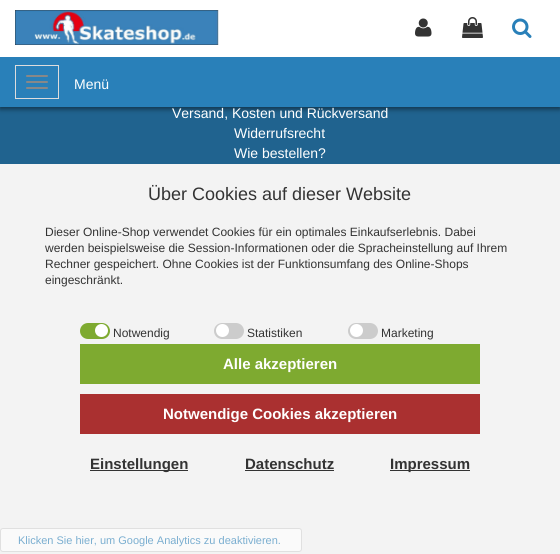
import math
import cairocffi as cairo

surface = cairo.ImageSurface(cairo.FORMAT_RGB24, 560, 554)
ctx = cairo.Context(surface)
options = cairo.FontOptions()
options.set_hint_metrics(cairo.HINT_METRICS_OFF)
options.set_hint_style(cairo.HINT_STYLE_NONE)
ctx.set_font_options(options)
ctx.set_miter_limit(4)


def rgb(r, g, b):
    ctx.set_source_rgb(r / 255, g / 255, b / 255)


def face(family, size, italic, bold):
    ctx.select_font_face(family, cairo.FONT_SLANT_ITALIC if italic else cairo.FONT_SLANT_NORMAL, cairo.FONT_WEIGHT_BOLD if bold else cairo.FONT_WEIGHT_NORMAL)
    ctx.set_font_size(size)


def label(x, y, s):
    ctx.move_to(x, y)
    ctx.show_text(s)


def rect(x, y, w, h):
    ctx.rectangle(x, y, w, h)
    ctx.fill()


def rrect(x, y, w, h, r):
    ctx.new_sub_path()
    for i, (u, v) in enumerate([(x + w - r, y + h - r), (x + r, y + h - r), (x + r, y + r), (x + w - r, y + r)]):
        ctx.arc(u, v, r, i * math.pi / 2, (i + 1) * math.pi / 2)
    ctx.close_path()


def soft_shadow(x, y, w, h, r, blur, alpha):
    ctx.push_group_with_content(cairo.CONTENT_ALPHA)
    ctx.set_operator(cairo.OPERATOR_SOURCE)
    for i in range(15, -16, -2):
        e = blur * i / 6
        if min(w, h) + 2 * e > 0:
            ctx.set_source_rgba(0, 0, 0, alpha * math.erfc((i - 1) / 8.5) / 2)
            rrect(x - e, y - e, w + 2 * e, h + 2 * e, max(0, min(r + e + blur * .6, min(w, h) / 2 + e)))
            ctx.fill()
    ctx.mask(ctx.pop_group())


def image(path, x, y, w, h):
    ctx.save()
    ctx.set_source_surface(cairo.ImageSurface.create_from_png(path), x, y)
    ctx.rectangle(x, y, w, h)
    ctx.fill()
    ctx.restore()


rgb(32, 99, 143)
ctx.paint()
rgb(0, 0, 0)
soft_shadow(0, 2, 560, 107, 0, 2.5, 0.5)
rgb(255, 255, 255)
rect(0, 0, 560, 57)
image('image0.png', 15, 10, 204, 35)
image('image1.png', 415, 18, 17, 19)
image('image2.png', 462, 17, 21, 21)
image('image3.png', 512, 18, 20, 20)
rgb(41, 128, 185)
rect(0, 57, 560, 50)
ctx.rectangle(15.5, 65.5, 43, 33)
rgb(221, 221, 221)
ctx.set_line_width(1)
ctx.stroke()
rgb(136, 136, 136)
rrect(26, 75, 22, 2, 1)
ctx.fill()
rrect(26, 81, 22, 2, 1)
ctx.fill()
rrect(26, 87, 22, 2, 1)
ctx.fill()
face('Liberation Sans', 14, 0, 0)
rgb(255, 255, 255)
label(74, 89, 'Menü')
label(172, 118, 'Versand, Kosten und Rückversand')
label(234, 138, 'Widerrufsrecht')
label(234, 158, 'Wie bestellen?')
rgb(243, 243, 243)
rect(0, 164, 560, 390)
face('Liberation Sans', 18, 0, 0)
rgb(51, 51, 51)
label(148, 200, 'Über Cookies auf dieser Website')
face('Liberation Sans', 12, 0, 0)
label(45, 236, 'Dieser Online-Shop verwendet Cookies für ein optimales Einkaufserlebnis. Dabei')
label(45, 252, 'werden beispielsweise die Session-Informationen oder die Spracheinstellung auf Ihrem')
label(45, 268, 'Rechner gespeichert. Ohne Cookies ist der Funktionsumfang des Online-Shops')
label(45, 284, 'eingeschränkt.')
rgb(126, 170, 48)
rrect(80, 323, 30, 16, 8)
ctx.fill()
rgb(255, 255, 255)
ctx.arc(101.5, 330.5, 6.5, 0, 2 * math.pi)
ctx.fill()
rgb(51, 51, 51)
label(113, 337, 'Notwendig')
rgb(204, 204, 204)
rrect(214, 323, 30, 16, 8)
ctx.fill()
rgb(255, 255, 255)
ctx.arc(222.5, 330.5, 6.5, 0, 2 * math.pi)
ctx.fill()
rgb(51, 51, 51)
label(247, 337, 'Statistiken')
rgb(204, 204, 204)
rrect(348, 323, 30, 16, 8)
ctx.fill()
rgb(255, 255, 255)
ctx.arc(356.5, 330.5, 6.5, 0, 2 * math.pi)
ctx.fill()
rgb(51, 51, 51)
label(381, 337, 'Marketing')
rgb(126, 170, 48)
rect(80, 344, 400, 40)
face('Liberation Sans', 15, 0, 1)
rgb(255, 255, 255)
label(223, 369, 'Alle akzeptieren')
rgb(170, 48, 48)
rect(80, 394, 400, 40)
rgb(255, 255, 255)
label(163, 419, 'Notwendige Cookies akzeptieren')
rgb(51, 51, 51)
rect(90, 470, 98, 1)
label(90, 469, 'Einstellungen')
label(245, 469, 'Datenschutz')
rect(245, 470, 89, 1)
rect(390, 470, 80, 1)
label(390, 469, 'Impressum')
rgb(250, 250, 250)
rrect(0.5, 528.5, 301, 23, 2.5)
ctx.fill_preserve()
rgb(224, 224, 224)
ctx.stroke()
face('Liberation Sans', 11, 0, 0)
rgb(122, 174, 208)
label(18, 544, 'Klicken Sie hier, um Google Analytics zu deaktivieren.')
surface.write_to_png('render.png')
